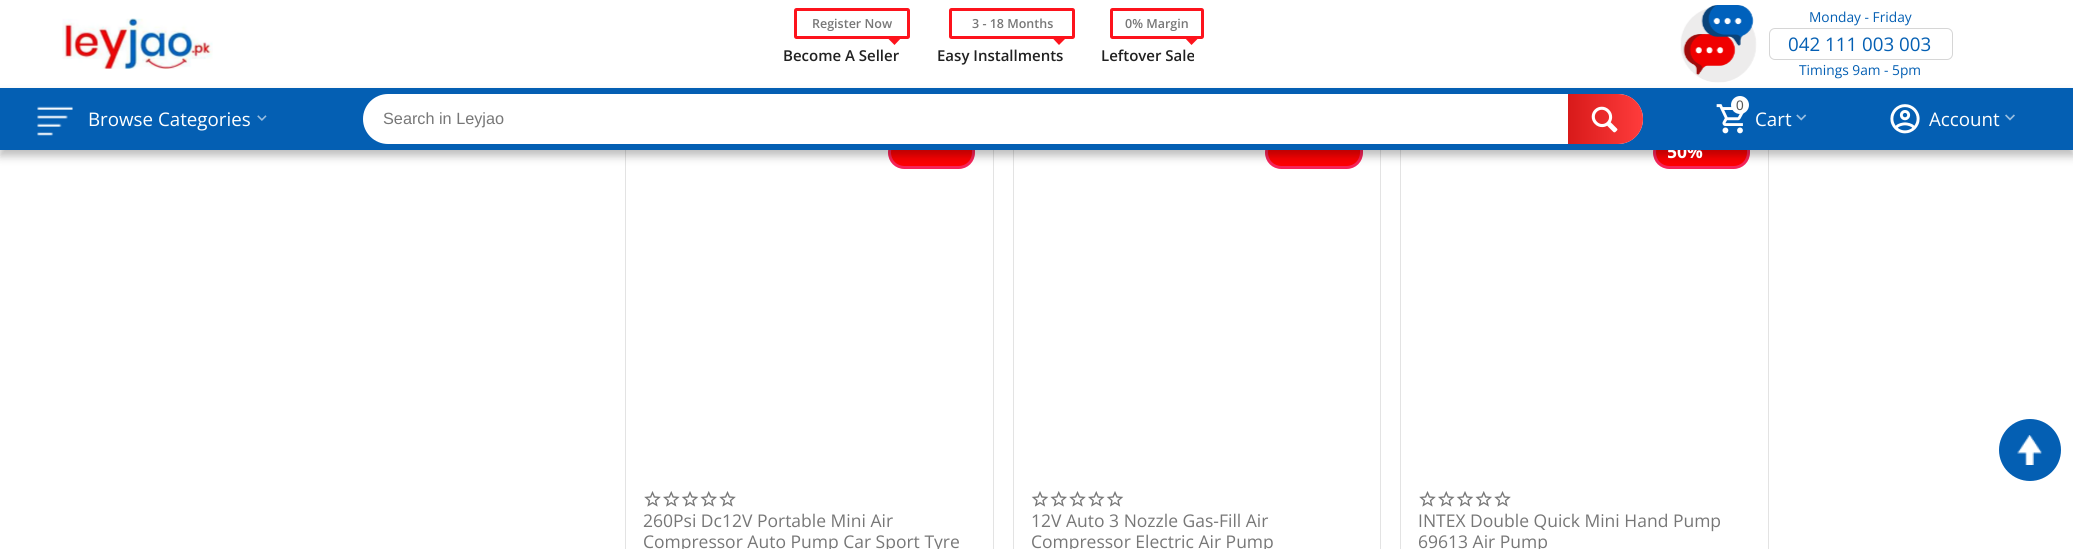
import math
import cairocffi as cairo

surface = cairo.ImageSurface(cairo.FORMAT_RGB24, 2073, 549)
ctx = cairo.Context(surface)
options = cairo.FontOptions()
options.set_hint_metrics(cairo.HINT_METRICS_OFF)
options.set_hint_style(cairo.HINT_STYLE_NONE)
ctx.set_font_options(options)
ctx.set_miter_limit(4)


def rgb(r, g, b):
    ctx.set_source_rgb(r / 255, g / 255, b / 255)


def face(family, size, italic, bold):
    ctx.select_font_face(family, cairo.FONT_SLANT_ITALIC if italic else cairo.FONT_SLANT_NORMAL, cairo.FONT_WEIGHT_BOLD if bold else cairo.FONT_WEIGHT_NORMAL)
    ctx.set_font_size(size)


def label(x, y, s):
    ctx.move_to(x, y)
    ctx.show_text(s)


def rect(x, y, w, h):
    ctx.rectangle(x, y, w, h)
    ctx.fill()


def rrect(x, y, w, h, r):
    ctx.new_sub_path()
    for i, (u, v) in enumerate([(x + w - r, y + h - r), (x + r, y + h - r), (x + r, y + r), (x + w - r, y + r)]):
        ctx.arc(u, v, r, i * math.pi / 2, (i + 1) * math.pi / 2)
    ctx.close_path()


def soft_shadow(x, y, w, h, r, blur, alpha):
    ctx.push_group_with_content(cairo.CONTENT_ALPHA)
    ctx.set_operator(cairo.OPERATOR_SOURCE)
    for i in range(15, -16, -2):
        e = blur * i / 6
        if min(w, h) + 2 * e > 0:
            ctx.set_source_rgba(0, 0, 0, alpha * math.erfc((i - 1) / 8.5) / 2)
            rrect(x - e, y - e, w + 2 * e, h + 2 * e, max(0, min(r + e + blur * .6, min(w, h) / 2 + e)))
            ctx.fill()
    ctx.mask(ctx.pop_group())


def image(path, x, y, w, h):
    ctx.save()
    ctx.set_source_surface(cairo.ImageSurface.create_from_png(path), x, y)
    ctx.rectangle(x, y, w, h)
    ctx.fill()
    ctx.restore()


rgb(255, 255, 255)
ctx.paint()
image('image0.png', 62, 18, 151, 51)
rrect(795.5, 9.5, 113, 28, 1)
rgb(253, 19, 28)
ctx.set_line_width(3)
ctx.stroke()
face('Open Sans SemiBold', 12.5, 0, 0)
rgb(119, 119, 119)
label(812, 28, 'Register Now')
rgb(253, 19, 28)
ctx.new_path()
ctx.move_to(885.5, 36)
ctx.line_to(903, 36)
ctx.line_to(894.5, 45)
ctx.close_path()
ctx.fill()
face('Open Sans SemiBold', 15, 0, 0)
rgb(33, 33, 33)
label(783, 61, 'Become A Seller')
rrect(950.5, 9.5, 123, 28, 1)
rgb(253, 19, 28)
ctx.stroke()
face('Open Sans SemiBold', 12.5, 0, 0)
rgb(119, 119, 119)
label(972, 28, '3 - 18 Months')
rgb(253, 19, 28)
ctx.new_path()
ctx.move_to(1050.5, 36)
ctx.line_to(1068, 36)
ctx.line_to(1059, 45)
ctx.close_path()
ctx.fill()
face('Open Sans SemiBold', 15, 0, 0)
rgb(33, 33, 33)
label(937, 61, 'Easy Installments')
rrect(1111.5, 9.5, 91, 28, 1)
rgb(253, 19, 28)
ctx.stroke()
face('Open Sans SemiBold', 12.5, 0, 0)
rgb(119, 119, 119)
label(1125, 28, '0% Margin')
rgb(253, 19, 28)
ctx.new_path()
ctx.move_to(1183, 36)
ctx.line_to(1200.5, 36)
ctx.line_to(1191.5, 45)
ctx.close_path()
ctx.fill()
face('Open Sans SemiBold', 15, 0, 0)
rgb(33, 33, 33)
label(1101, 61, 'Leftover Sale')
image('image1.png', 1680, 5, 77, 78)
face('Open Sans', 13.75, 0, 0)
rgb(4, 95, 179)
label(1809, 22, 'Monday - Friday')
rrect(1769.5, 28.5, 183, 31, 5.5)
rgb(214, 214, 214)
ctx.set_line_width(1)
ctx.stroke()
face('Open Sans', 18.75, 0, 0)
rgb(4, 95, 179)
label(1788, 51, '042 111 003 003')
face('Open Sans', 13.75, 0, 0)
label(1799, 75, 'Timings 9am - 5pm')
ctx.rectangle(625.5, 118.5, 368, 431)
rgb(227, 227, 227)
ctx.stroke()
rgb(253, 1, 2)
ctx.new_path()
ctx.move_to(904.5, 137.5)
ctx.line_to(973.5, 137.5)
ctx.line_to(973.5, 152.5)
ctx.curve_to(973.5, 161, 967, 167.5, 958.5, 167.5)
ctx.line_to(904.5, 167.5)
ctx.curve_to(896, 167.5, 889.5, 161, 889.5, 152.5)
ctx.curve_to(889.5, 144, 896, 137.5, 904.5, 137.5)
ctx.close_path()
ctx.fill_preserve()
rgb(246, 36, 89)
ctx.set_line_width(3)
ctx.stroke()
ctx.rectangle(1013.5, 118.5, 367, 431)
rgb(227, 227, 227)
ctx.set_line_width(1)
ctx.stroke()
rgb(253, 1, 2)
ctx.new_path()
ctx.move_to(1281.5, 137.5)
ctx.line_to(1361.5, 137.5)
ctx.line_to(1361.5, 152.5)
ctx.curve_to(1361.5, 161, 1355, 167.5, 1346.5, 167.5)
ctx.line_to(1281.5, 167.5)
ctx.curve_to(1273, 167.5, 1266.5, 161, 1266.5, 152.5)
ctx.curve_to(1266.5, 144, 1273, 137.5, 1281.5, 137.5)
ctx.close_path()
ctx.fill_preserve()
rgb(246, 36, 89)
ctx.set_line_width(3)
ctx.stroke()
ctx.rectangle(1400.5, 118.5, 368, 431)
rgb(227, 227, 227)
ctx.set_line_width(1)
ctx.stroke()
rgb(253, 1, 2)
ctx.new_path()
ctx.move_to(1669.5, 137.5)
ctx.line_to(1748.5, 137.5)
ctx.line_to(1748.5, 152.5)
ctx.curve_to(1748.5, 161, 1742, 167.5, 1733.5, 167.5)
ctx.line_to(1669.5, 167.5)
ctx.curve_to(1661, 167.5, 1654.5, 161, 1654.5, 152.5)
ctx.curve_to(1654.5, 144, 1661, 137.5, 1669.5, 137.5)
ctx.close_path()
ctx.fill_preserve()
rgb(246, 36, 89)
ctx.set_line_width(3)
ctx.stroke()
rgb(0, 0, 0)
soft_shadow(0, 94, 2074, 62, 0, 4.5, 0.26)
ctx.save()
ctx.rectangle(1668, 144, 67, 17)
ctx.clip()
face('Open Sans', 17.5, 0, 1)
rgb(255, 255, 255)
label(1667, 158, '50%')
ctx.restore()
rgb(4, 95, 179)
rect(0, 88, 2073, 62)
image('image2.png', 37, 106, 36, 30)
face('Open Sans', 18.75, 0, 0)
rgb(255, 255, 255)
label(88, 126, 'Browse Categories')
image('image3.png', 257, 115, 10, 6)
rrect(363, 94, 1280, 50, 25)
ctx.fill()
face('Liberation Sans', 16.25, 0, 0)
rgb(119, 119, 119)
label(383, 124, 'Search in Leyjao')
gradient = cairo.LinearGradient(1568, 119, 1643, 119)
gradient.add_color_stop_rgba(0, 0.847, 0.102, 0.102, 1)
gradient.add_color_stop_rgba(1, 1, 0.235, 0.235, 1)
ctx.set_source(gradient)
ctx.new_path()
ctx.move_to(1568, 94)
ctx.line_to(1618, 94)
ctx.curve_to(1632, 94, 1643, 105, 1643, 119)
ctx.curve_to(1643, 133, 1632, 144, 1618, 144)
ctx.line_to(1568, 144)
ctx.close_path()
ctx.fill()
image('image4.png', 1591, 106, 27, 27)
image('image5.png', 1716, 104, 28, 30)
rgb(255, 255, 255)
ctx.arc(1740, 105, 9, 0, 2 * math.pi)
ctx.fill()
face('Liberation Sans', 13.75, 0, 0)
rgb(89, 89, 89)
label(1736, 110, '0')
face('Open Sans', 18.75, 0, 0)
rgb(255, 255, 255)
label(1755, 126, 'Cart')
image('image6.png', 1796, 114, 11, 7)
image('image7.png', 1890, 104, 30, 30)
label(1929, 126, 'Account')
image('image8.png', 2005, 114, 10, 7)
image('image9.png', 644, 491, 17, 16)
image('image10.png', 663, 491, 17, 16)
image('image11.png', 681, 491, 18, 16)
image('image12.png', 700, 491, 17, 16)
image('image9.png', 719, 491, 17, 16)
face('Open Sans', 17.5, 0, 0)
rgb(119, 119, 119)
label(643, 527, '260Psi Dc12V Portable Mini Air')
label(643, 548, 'Compressor Auto Pump Car Sport Tyre')
image('image11.png', 1031, 491, 18, 16)
image('image12.png', 1050, 491, 17, 16)
image('image9.png', 1069, 491, 17, 16)
image('image10.png', 1088, 491, 17, 16)
image('image11.png', 1106, 491, 18, 16)
label(1031, 527, '12V Auto 3 Nozzle Gas-Fill Air')
label(1031, 548, 'Compressor Electric Air Pump')
image('image9.png', 1419, 491, 17, 16)
image('image10.png', 1438, 491, 17, 16)
image('image11.png', 1456, 491, 18, 16)
image('image12.png', 1475, 491, 17, 16)
image('image9.png', 1494, 491, 17, 16)
label(1418, 527, 'INTEX Double Quick Mini Hand Pump')
label(1418, 548, '69613 Air Pump')
rgb(4, 95, 179)
ctx.new_path()
ctx.arc(2030, 450, 31, 0, 2 * math.pi)
ctx.fill()
image('image13.png', 2017, 435, 25, 30)
surface.write_to_png('render.png')
